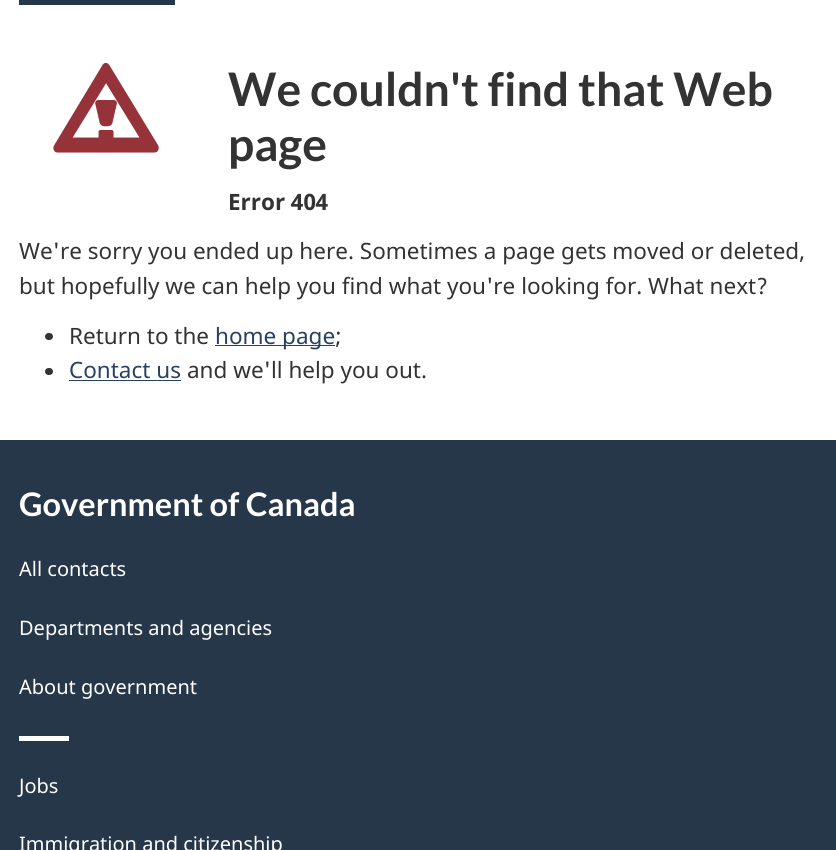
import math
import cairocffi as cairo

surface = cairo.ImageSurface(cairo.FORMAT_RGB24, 836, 850)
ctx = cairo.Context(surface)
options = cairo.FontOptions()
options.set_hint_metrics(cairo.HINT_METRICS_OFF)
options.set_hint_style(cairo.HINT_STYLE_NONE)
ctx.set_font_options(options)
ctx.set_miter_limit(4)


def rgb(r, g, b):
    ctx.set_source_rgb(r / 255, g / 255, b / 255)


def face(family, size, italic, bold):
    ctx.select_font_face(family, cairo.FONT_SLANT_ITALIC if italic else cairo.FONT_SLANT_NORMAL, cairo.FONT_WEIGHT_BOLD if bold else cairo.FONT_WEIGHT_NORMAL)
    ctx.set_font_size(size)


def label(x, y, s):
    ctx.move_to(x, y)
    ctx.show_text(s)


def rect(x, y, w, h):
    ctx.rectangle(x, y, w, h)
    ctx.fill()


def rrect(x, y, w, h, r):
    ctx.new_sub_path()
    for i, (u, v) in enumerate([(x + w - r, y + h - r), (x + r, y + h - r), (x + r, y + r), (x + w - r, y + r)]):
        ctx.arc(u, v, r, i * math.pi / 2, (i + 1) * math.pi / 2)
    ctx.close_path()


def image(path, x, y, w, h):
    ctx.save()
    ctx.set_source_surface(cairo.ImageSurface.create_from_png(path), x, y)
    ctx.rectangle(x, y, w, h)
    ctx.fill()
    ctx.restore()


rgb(255, 255, 255)
ctx.paint()
rgb(38, 55, 74)
rect(19, 0, 156, 5)
image('image0.png', 53, 62, 106, 91)
face('Lato', 46.25, 0, 1)
rgb(51, 51, 51)
label(228, 106, 'We couldn\'t find that Web')
label(228, 161, 'page')
face('Noto Sans', 22.5, 0, 1)
label(228, 210, 'Error 404')
face('Noto Sans', 22.5, 0, 0)
label(19, 259, 'We\'re sorry you ended up here. Sometimes a page gets moved or deleted,')
label(19, 294, 'but hopefully we can help you find what you\'re looking for. What next?')
rrect(45, 333, 8, 7, 3.5)
ctx.fill()
label(69, 344, 'Return to the')
rgb(40, 65, 98)
rect(215, 345, 120, 1)
label(215, 344, 'home page')
rgb(51, 51, 51)
label(335, 344, ';')
rrect(45, 368, 8, 7, 3.5)
ctx.fill()
rgb(40, 65, 98)
label(69, 378, 'Contact us')
rect(69, 380, 112, 1)
rgb(51, 51, 51)
label(187, 378, 'and we\'ll help you out.')
rgb(38, 55, 74)
rect(0, 440, 836, 410)
face('Lato', 32.5, 0, 1)
rgb(255, 255, 255)
label(19, 516, 'Government of Canada')
face('Noto Sans', 20, 0, 0)
label(19, 576, 'All contacts')
label(19, 635, 'Departments and agencies')
label(19, 694, 'About government')
rect(19, 736, 50, 5)
label(19, 793, 'Jobs')
label(19, 851, 'Immigration and citizenship')
surface.write_to_png('render.png')
